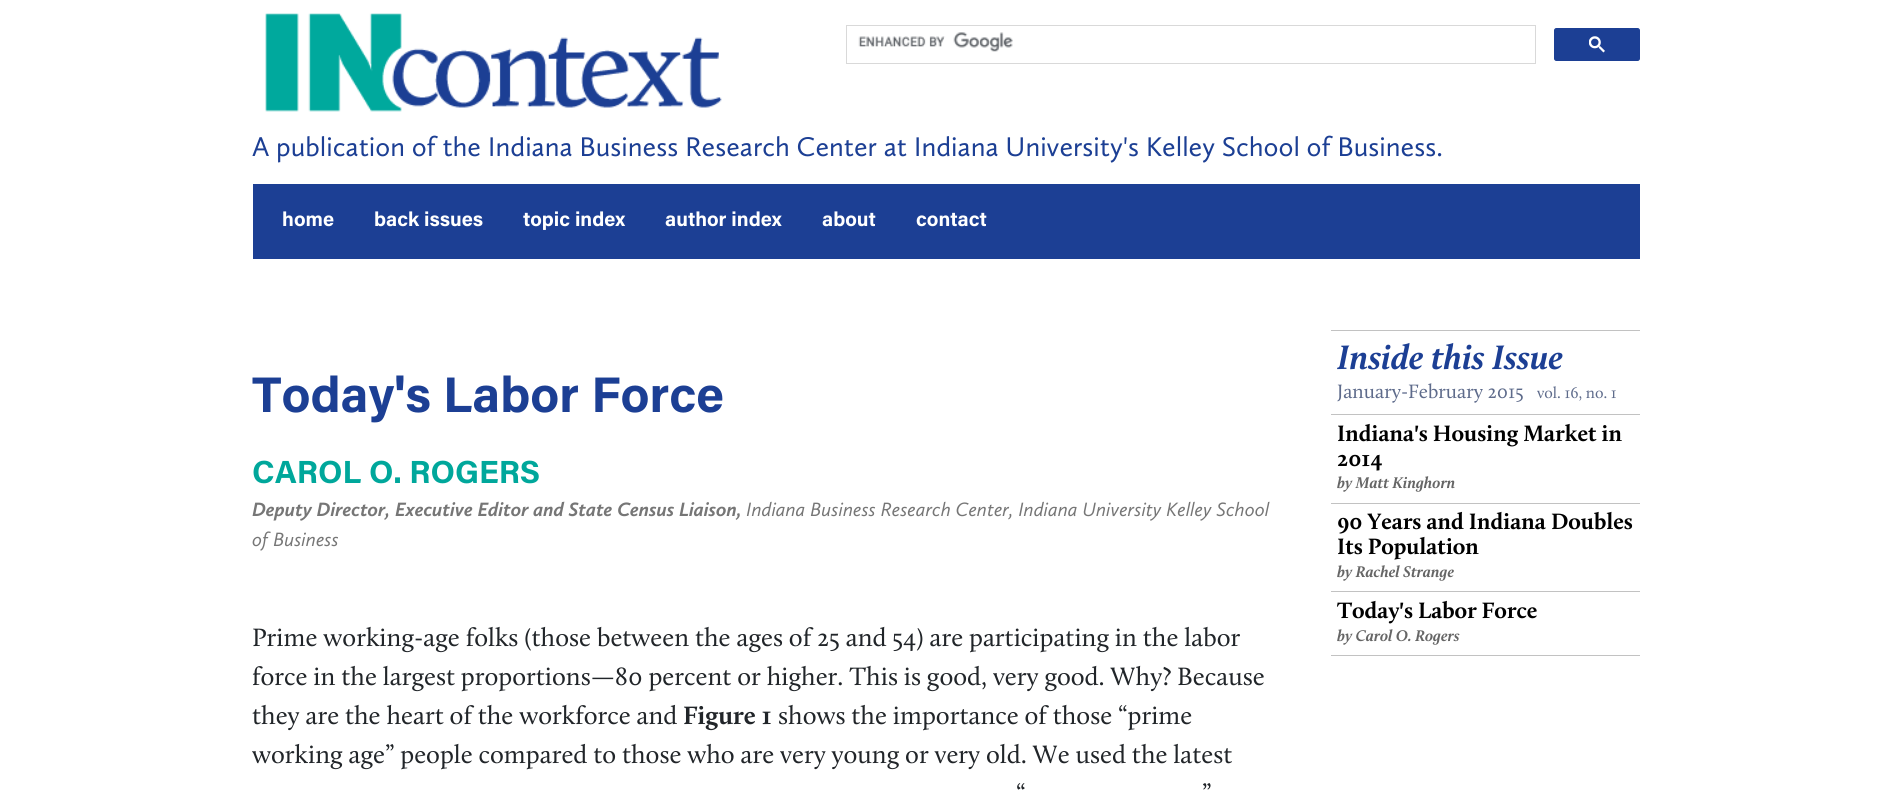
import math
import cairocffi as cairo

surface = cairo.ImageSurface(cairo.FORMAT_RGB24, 1891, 792)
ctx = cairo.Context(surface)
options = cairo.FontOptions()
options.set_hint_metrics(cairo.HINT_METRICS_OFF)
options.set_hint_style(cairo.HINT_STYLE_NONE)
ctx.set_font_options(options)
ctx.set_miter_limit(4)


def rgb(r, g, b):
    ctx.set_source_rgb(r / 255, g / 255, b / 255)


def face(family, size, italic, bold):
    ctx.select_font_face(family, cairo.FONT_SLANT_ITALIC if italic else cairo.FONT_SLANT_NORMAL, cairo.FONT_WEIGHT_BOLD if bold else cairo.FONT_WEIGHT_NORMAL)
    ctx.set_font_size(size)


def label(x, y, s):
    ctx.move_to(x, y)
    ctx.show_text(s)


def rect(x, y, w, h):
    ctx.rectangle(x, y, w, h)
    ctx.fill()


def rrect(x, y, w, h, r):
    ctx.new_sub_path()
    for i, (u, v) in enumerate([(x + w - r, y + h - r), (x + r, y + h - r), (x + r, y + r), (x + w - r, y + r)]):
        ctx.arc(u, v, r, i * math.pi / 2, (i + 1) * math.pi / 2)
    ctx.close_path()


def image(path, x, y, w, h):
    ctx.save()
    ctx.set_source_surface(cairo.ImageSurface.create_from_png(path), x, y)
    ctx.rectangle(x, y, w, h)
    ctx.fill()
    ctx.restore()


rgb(255, 255, 255)
ctx.paint()
image('image0.png', 265, 13, 457, 99)
ctx.rectangle(846.5, 25.5, 689, 38)
rgb(217, 217, 217)
ctx.set_line_width(1)
ctx.stroke()
image('image1.png', 858, 32, 155, 20)
rgb(28, 63, 148)
rrect(1554.5, 28.5, 85, 32, 2)
ctx.fill_preserve()
ctx.stroke()
image('image2.png', 1589, 36, 16, 17)
face('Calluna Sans', 28, 0, 0)
label(252, 156, 'A publication of the Indiana Business Research Center at Indiana University\'s Kelley School of Business.')
rect(253, 184, 1387, 75)
face('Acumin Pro', 20, 0, 1)
rgb(255, 255, 255)
label(282, 226, 'home')
label(374, 226, 'back issues')
label(523, 226, 'topic index')
label(665, 226, 'author index')
label(822, 226, 'about')
label(916, 226, 'contact')
face('Acumin Pro', 50, 0, 1)
rgb(28, 63, 148)
label(252, 412, 'Today\'s Labor Force')
face('Acumin Pro', 32, 0, 1)
rgb(0, 167, 155)
label(252, 483, 'CAROL O. ROGERS')
face('Calluna Sans', 20, 1, 1)
rgb(118, 118, 118)
label(252, 516, 'Deputy Director, Executive Editor and State Census Liaison,')
face('Calluna Sans', 20, 1, 0)
label(746, 516, 'Indiana Business Research Center, Indiana University Kelley School')
label(252, 546, 'of Business')
face('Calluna', 26, 0, 0)
rgb(33, 37, 41)
label(252, 646, 'Prime working-age folks (those between the ages of 25 and 54) are participating in the labor')
label(252, 685, 'force in the largest proportions—80 percent or higher. This is good, very good. Why? Because')
label(252, 724, 'they are the heart of the workforce and')
face('Calluna', 26, 0, 1)
label(683, 724, 'Figure 1')
face('Calluna', 26, 0, 0)
label(778, 724, 'shows the importance of those “prime')
label(252, 763, 'working age” people compared to those who are very young or very old. We used the latest')
label(1016, 802, '“')
label(1202, 802, '”')
rgb(194, 194, 194)
rect(1331, 330, 309, 1)
face('Calluna', 35, 1, 1)
rgb(28, 63, 148)
label(1337, 369, 'Inside this Issue')
rgb(194, 194, 194)
rect(1331, 414, 309, 1)
face('Calluna', 20, 0, 0)
rgb(94, 107, 139)
label(1337, 398, 'January-February 2015')
face('Calluna', 16, 0, 0)
label(1537, 398, 'vol. 16, no. 1')
rgb(194, 194, 194)
rect(1331, 503, 309, 1)
face('Calluna', 23, 0, 1)
rgb(0, 0, 0)
label(1337, 441, 'Indiana\'s Housing Market in')
label(1337, 466, '2014')
face('Calluna', 16, 1, 1)
rgb(102, 102, 102)
label(1337, 488, 'by Matt Kinghorn')
rgb(194, 194, 194)
rect(1331, 591, 309, 1)
face('Calluna', 23, 0, 1)
rgb(0, 0, 0)
label(1337, 529, '90 Years and Indiana Doubles')
label(1337, 554, 'Its Population')
face('Calluna', 16, 1, 1)
rgb(102, 102, 102)
label(1337, 577, 'by Rachel Strange')
rgb(194, 194, 194)
rect(1331, 655, 309, 1)
face('Calluna', 23, 0, 1)
rgb(0, 0, 0)
label(1337, 618, 'Today\'s Labor Force')
face('Calluna', 16, 1, 1)
rgb(102, 102, 102)
label(1337, 641, 'by Carol O. Rogers')
surface.write_to_png('render.png')
